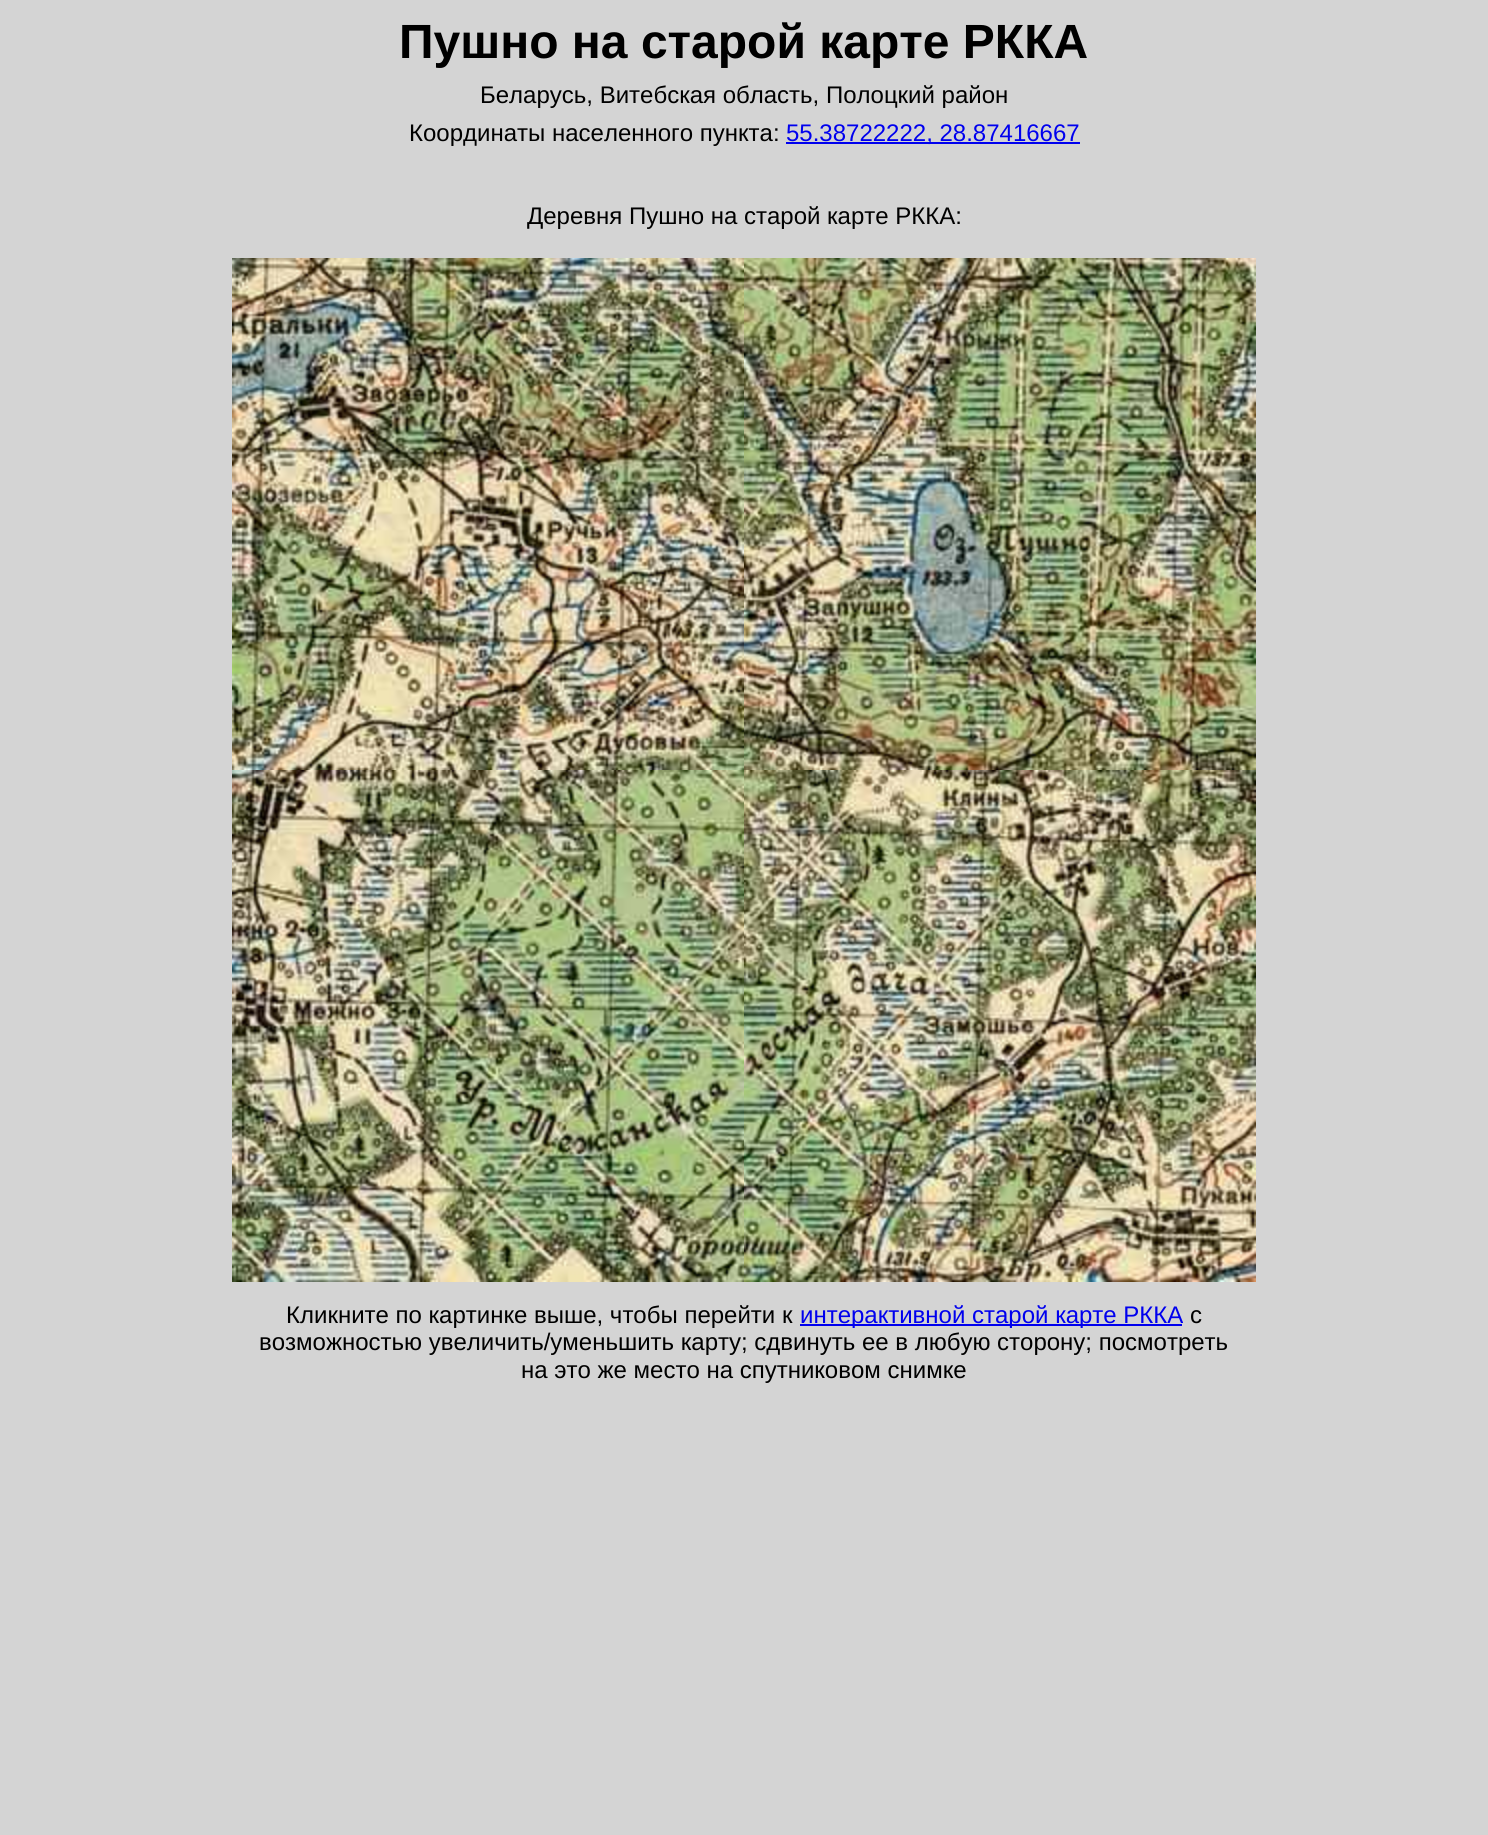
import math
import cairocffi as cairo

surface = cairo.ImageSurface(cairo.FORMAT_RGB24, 1488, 1835)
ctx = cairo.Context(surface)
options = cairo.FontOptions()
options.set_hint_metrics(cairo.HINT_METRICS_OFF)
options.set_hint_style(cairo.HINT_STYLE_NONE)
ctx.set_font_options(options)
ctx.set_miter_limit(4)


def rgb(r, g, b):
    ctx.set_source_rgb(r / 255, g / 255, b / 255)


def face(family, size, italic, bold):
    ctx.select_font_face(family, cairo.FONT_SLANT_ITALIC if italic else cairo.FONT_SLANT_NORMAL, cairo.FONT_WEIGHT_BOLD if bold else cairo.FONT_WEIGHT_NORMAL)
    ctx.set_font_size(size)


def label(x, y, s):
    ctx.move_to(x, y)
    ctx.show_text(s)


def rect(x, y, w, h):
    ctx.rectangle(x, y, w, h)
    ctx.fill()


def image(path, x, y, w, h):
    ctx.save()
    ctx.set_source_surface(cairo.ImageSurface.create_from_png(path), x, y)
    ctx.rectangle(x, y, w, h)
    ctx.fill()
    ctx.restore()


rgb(212, 212, 212)
ctx.paint()
face('Liberation Sans', 48, 0, 1)
rgb(0, 0, 0)
label(399, 58, 'Пушно на старой карте РККА')
face('Liberation Sans', 24, 0, 0)
label(480, 103, 'Беларусь, Витебская область, Полоцкий район')
label(409, 141, 'Координаты населенного пункта:')
rgb(0, 0, 238)
rect(786, 142, 294, 2)
label(786, 141, '55.38722222, 28.87416667')
rgb(0, 0, 0)
label(527, 224, 'Деревня Пушно на старой карте РККА:')
image('image0.png', 232, 258, 512, 512)
image('image1.png', 744, 258, 512, 512)
image('image2.png', 232, 770, 512, 512)
image('image3.png', 744, 770, 512, 512)
label(286, 1323, 'Кликните по картинке выше, чтобы перейти к')
rgb(0, 0, 238)
rect(800, 1324, 382, 2)
label(800, 1323, 'интерактивной старой карте РККА')
rgb(0, 0, 0)
label(1190, 1323, 'с')
label(259, 1350, 'возможностью увеличить/уменьшить карту; сдвинуть ее в любую сторону; посмотреть')
label(521, 1378, 'на это же место на спутниковом снимке')
surface.write_to_png('render.png')
